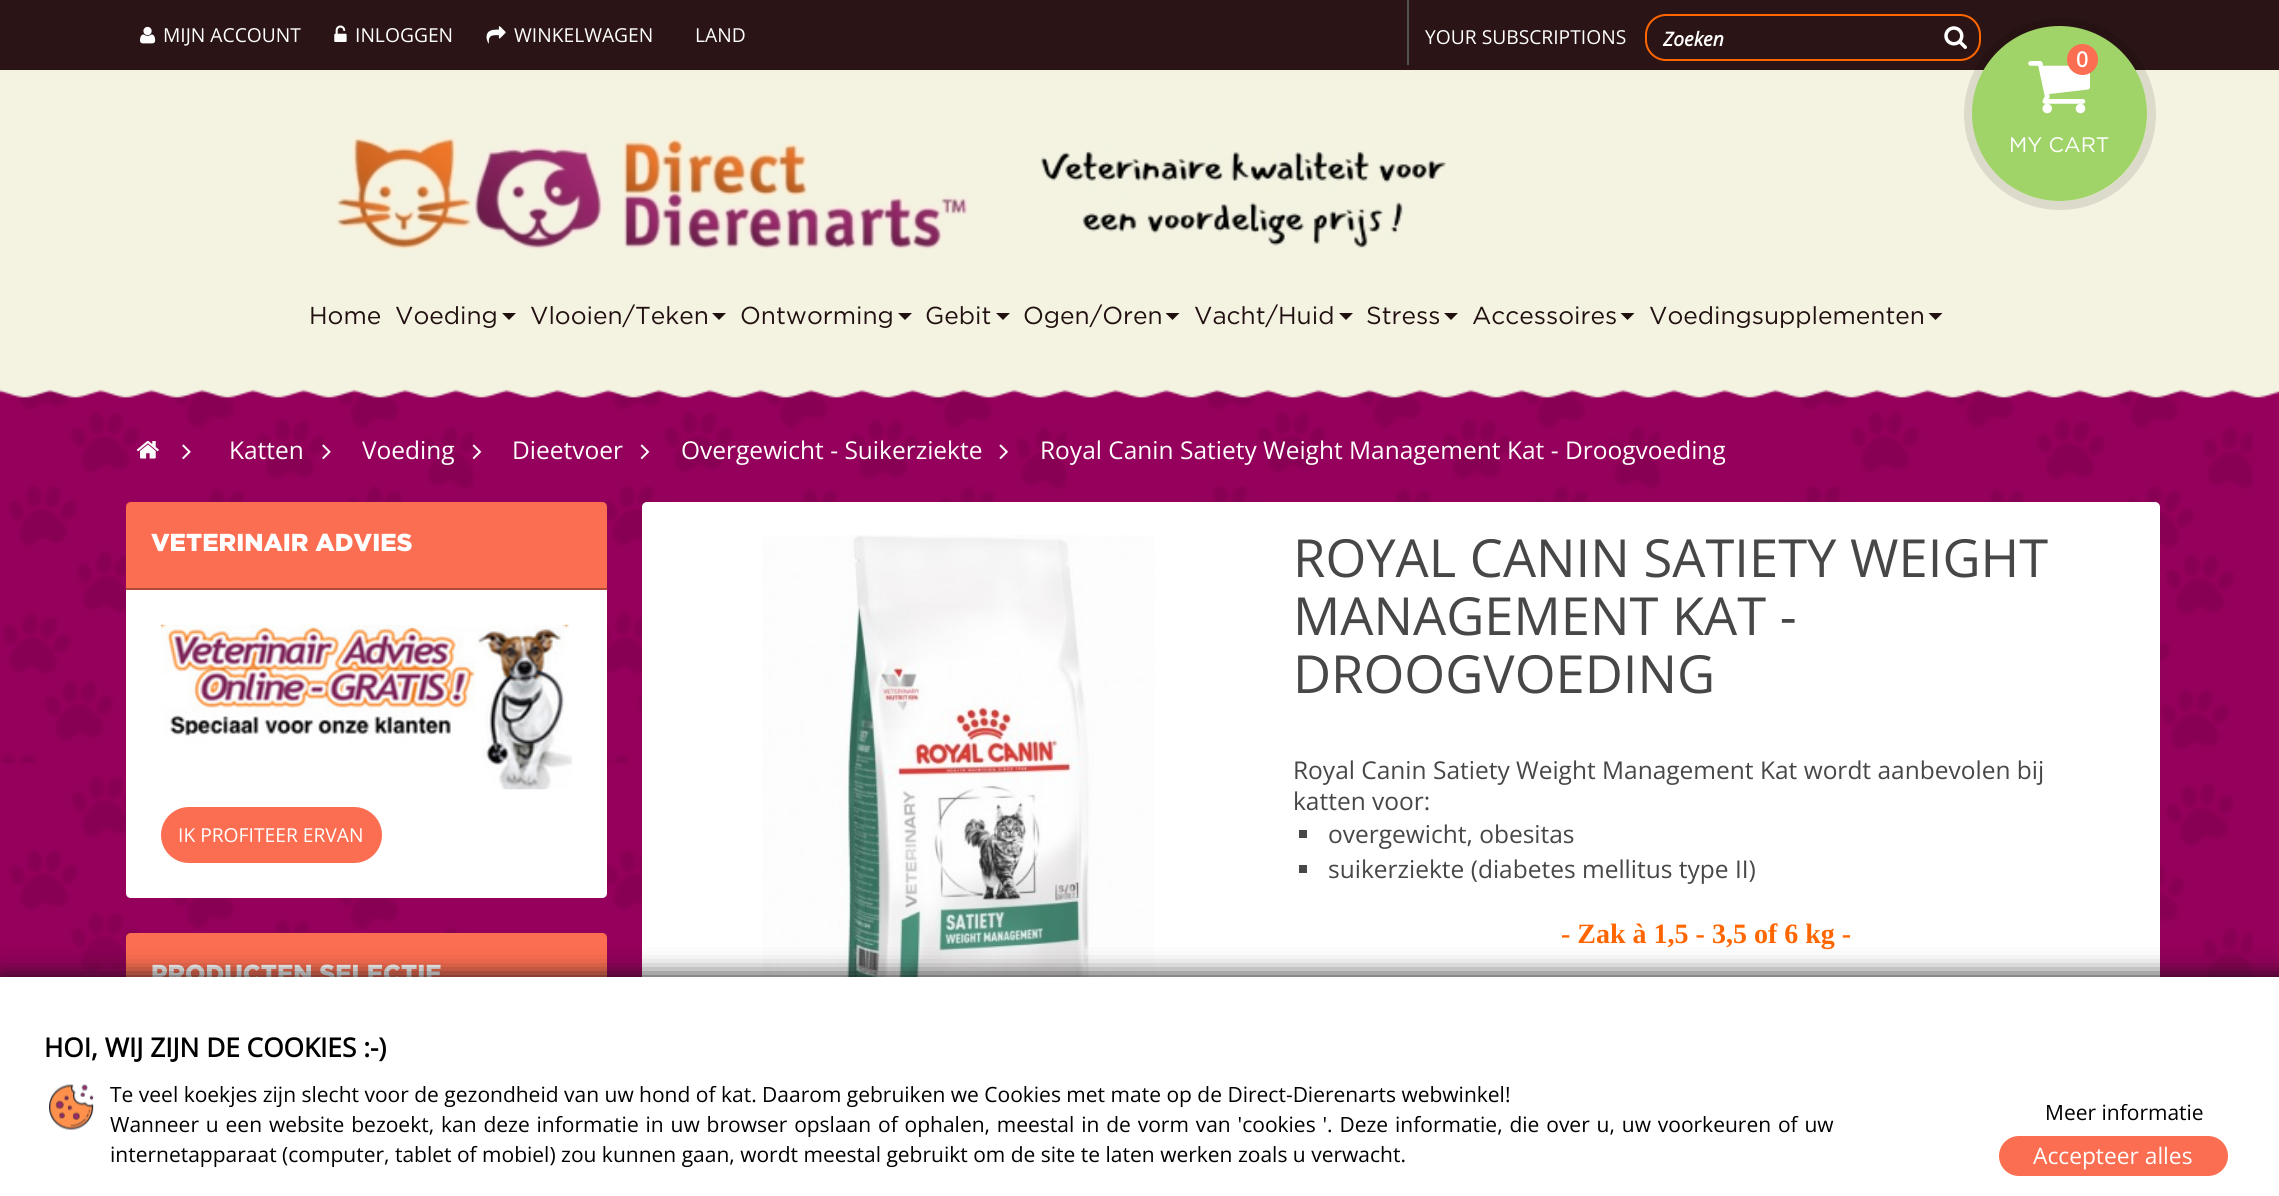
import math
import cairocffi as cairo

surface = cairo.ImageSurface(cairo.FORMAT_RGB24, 2279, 1196)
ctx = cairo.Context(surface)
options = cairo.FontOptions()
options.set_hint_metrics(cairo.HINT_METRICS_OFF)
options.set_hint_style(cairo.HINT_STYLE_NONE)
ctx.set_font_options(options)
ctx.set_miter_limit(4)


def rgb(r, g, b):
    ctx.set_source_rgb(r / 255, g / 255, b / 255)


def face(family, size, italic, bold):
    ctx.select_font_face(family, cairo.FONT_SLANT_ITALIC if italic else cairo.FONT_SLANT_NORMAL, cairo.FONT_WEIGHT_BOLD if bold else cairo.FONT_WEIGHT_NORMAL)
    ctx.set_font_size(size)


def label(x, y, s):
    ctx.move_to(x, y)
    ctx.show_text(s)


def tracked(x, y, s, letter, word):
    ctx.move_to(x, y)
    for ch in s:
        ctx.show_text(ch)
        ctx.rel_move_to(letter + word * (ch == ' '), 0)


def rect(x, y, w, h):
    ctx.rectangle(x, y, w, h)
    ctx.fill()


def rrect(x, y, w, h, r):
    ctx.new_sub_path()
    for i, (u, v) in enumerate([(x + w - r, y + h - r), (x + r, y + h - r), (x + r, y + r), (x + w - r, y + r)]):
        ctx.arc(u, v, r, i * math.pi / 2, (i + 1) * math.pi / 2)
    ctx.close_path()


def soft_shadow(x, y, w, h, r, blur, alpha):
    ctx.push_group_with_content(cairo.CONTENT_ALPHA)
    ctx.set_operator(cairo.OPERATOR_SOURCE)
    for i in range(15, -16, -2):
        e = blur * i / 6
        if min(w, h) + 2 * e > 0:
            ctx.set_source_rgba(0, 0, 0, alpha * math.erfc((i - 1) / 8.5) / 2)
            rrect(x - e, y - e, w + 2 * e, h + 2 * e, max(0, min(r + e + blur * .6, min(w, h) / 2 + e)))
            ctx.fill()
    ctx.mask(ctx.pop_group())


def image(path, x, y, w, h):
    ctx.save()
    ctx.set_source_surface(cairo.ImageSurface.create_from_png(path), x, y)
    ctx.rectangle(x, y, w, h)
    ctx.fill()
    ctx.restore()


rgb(148, 0, 91)
ctx.paint()
image('image0.png', 1, 389, 2252, 588)
rgb(42, 20, 21)
rect(0, 0, 2279, 70)
image('image1.png', 140, 26, 16, 18)
face('Open Sans', 19.25, 0, 0)
rgb(255, 255, 255)
label(163, 42, 'MIJN ACCOUNT')
image('image2.png', 334, 25, 13, 17)
label(355, 42, 'INLOGGEN')
image('image3.png', 486, 26, 20, 18)
label(514, 42, 'WINKELWAGEN')
label(695, 42, 'LAND')
rgb(81, 81, 81)
rect(1407, 0, 2, 65)
rgb(255, 255, 255)
label(1425, 44, 'YOUR SUBSCRIPTIONS')
rrect(1646, 15, 334, 45, 20)
rgb(255, 102, 0)
ctx.stroke()
face('Open Sans', 19.25, 1, 1)
rgb(255, 255, 255)
label(1663, 46, 'Zoeken')
image('image4.png', 1944, 26, 23, 23)
rgb(244, 242, 225)
rect(0, 70, 2279, 317)
ctx.arc(2060, 114, 91.5, 0, 2 * math.pi)
ctx.set_source_rgba(0, 0, 0, 0.1)
ctx.set_line_width(9)
ctx.stroke()
rgb(160, 212, 104)
ctx.arc(2059.5, 113.5, 87.5, 0, 2 * math.pi)
ctx.fill()
image('image5.png', 2028, 61, 62, 53)
rgb(252, 110, 81)
ctx.arc(2082.5, 59.5, 15.5, 0, 2 * math.pi)
ctx.fill()
face('Open Sans', 21, 0, 1)
rgb(255, 255, 255)
label(2076, 67, '0')
face('Gotham', 21, 0, 0)
label(2009, 152, 'MY CART')
face('Gotham', 24.5, 0, 0)
rgb(33, 16, 16)
label(309, 324, 'Home')
label(395, 324, 'Voeding')
ctx.new_path()
ctx.move_to(502, 313)
ctx.line_to(516, 313)
ctx.line_to(509, 320)
ctx.close_path()
ctx.fill()
label(530, 324, 'Vlooien/Teken')
ctx.new_path()
ctx.move_to(712, 313)
ctx.line_to(726, 313)
ctx.line_to(719, 320)
ctx.close_path()
ctx.fill()
label(740, 324, 'Ontworming')
ctx.new_path()
ctx.move_to(898, 313)
ctx.line_to(912, 313)
ctx.line_to(905, 320)
ctx.close_path()
ctx.fill()
label(925, 324, 'Gebit')
ctx.new_path()
ctx.move_to(996, 313)
ctx.line_to(1010, 313)
ctx.line_to(1003, 320)
ctx.close_path()
ctx.fill()
label(1023, 324, 'Ogen/Oren')
ctx.new_path()
ctx.move_to(1165.5, 313)
ctx.line_to(1179.5, 313)
ctx.line_to(1172.5, 320)
ctx.close_path()
ctx.fill()
label(1194, 324, 'Vacht/Huid')
ctx.new_path()
ctx.move_to(1339, 313)
ctx.line_to(1353, 313)
ctx.line_to(1346, 320)
ctx.close_path()
ctx.fill()
label(1366, 324, 'Stress')
ctx.new_path()
ctx.move_to(1444, 313)
ctx.line_to(1458, 313)
ctx.line_to(1451, 320)
ctx.close_path()
ctx.fill()
label(1472, 324, 'Accessoires')
ctx.new_path()
ctx.move_to(1620.5, 313)
ctx.line_to(1634.5, 313)
ctx.line_to(1627.5, 320)
ctx.close_path()
ctx.fill()
label(1649, 324, 'Voedingsupplementen')
ctx.new_path()
ctx.move_to(1928.5, 313)
ctx.line_to(1942.5, 313)
ctx.line_to(1935.5, 320)
ctx.close_path()
ctx.fill()
image('image6.png', 336, 137, 1110, 112)
image('image7.png', 0, 387, 2279, 11)
image('image8.png', 136, 441, 23, 18)
image('image9.png', 182, 444, 9, 16)
face('Open Sans', 24.5, 0, 0)
rgb(255, 255, 255)
label(229, 459, 'Katten')
image('image10.png', 322, 444, 9, 16)
label(362, 459, 'Voeding')
image('image11.png', 472, 444, 10, 16)
label(512, 459, 'Dieetvoer')
image('image12.png', 640, 444, 10, 16)
label(681, 459, 'Overgewicht - Suikerziekte')
image('image13.png', 999, 444, 9, 16)
label(1040, 459, 'Royal Canin Satiety Weight Management Kat - Droogvoeding')
rgb(252, 110, 81)
ctx.new_path()
ctx.move_to(131, 502)
ctx.line_to(602, 502)
ctx.curve_to(605, 502, 607, 504, 607, 507)
ctx.line_to(607, 590)
ctx.line_to(126, 590)
ctx.line_to(126, 507)
ctx.curve_to(126, 504, 128, 502, 131, 502)
ctx.close_path()
ctx.fill()
rgb(176, 77, 57)
rect(126, 588, 481, 2)
face('Gotham Black', 24.5, 0, 0)
rgb(255, 255, 255)
label(151, 551, 'VETERINAIR ADVIES')
ctx.new_path()
ctx.move_to(126, 590)
ctx.line_to(607, 590)
ctx.line_to(607, 893)
ctx.curve_to(607, 896, 605, 898, 602, 898)
ctx.line_to(131, 898)
ctx.curve_to(128, 898, 126, 896, 126, 893)
ctx.close_path()
ctx.fill()
image('image14.png', 161, 624, 412, 166)
rgb(252, 110, 81)
rrect(161, 807, 221, 56, 28)
ctx.fill()
face('Open Sans', 19.25, 0, 0)
rgb(255, 255, 255)
label(178, 842, 'IK PROFITEER ERVAN')
rgb(252, 110, 81)
ctx.new_path()
ctx.move_to(131, 933)
ctx.line_to(602, 933)
ctx.curve_to(605, 933, 607, 935, 607, 938)
ctx.line_to(607, 1020)
ctx.line_to(126, 1020)
ctx.line_to(126, 938)
ctx.curve_to(126, 935, 128, 933, 131, 933)
ctx.close_path()
ctx.fill()
face('Gotham Black', 24.5, 0, 0)
rgb(255, 255, 255)
label(151, 982, 'PRODUCTEN SELECTIE')
rrect(642, 502, 1518, 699, 5)
ctx.fill()
image('image15.png', 763, 535, 392, 442)
face('Open Sans', 52.5, 0, 0)
rgb(71, 71, 71)
label(1293, 577, 'ROYAL CANIN SATIETY WEIGHT')
label(1293, 635, 'MANAGEMENT KAT -')
label(1293, 693, 'DROOGVOEDING')
face('Open Sans', 24.5, 0, 0)
label(1293, 779, 'Royal Canin Satiety Weight Management Kat wordt aanbevolen bij')
label(1293, 810, 'katten voor:')
rect(1299, 830, 8, 8)
label(1328, 843, 'overgewicht, obesitas')
rect(1299, 865, 8, 8)
label(1328, 878, 'suikerziekte (diabetes mellitus type II)')
face('Liberation Serif', 28, 0, 1)
rgb(255, 102, 0)
label(1561, 943, '- Zak à 1,5 - 3,5 of 6 kg -')
rgb(18, 18, 18)
soft_shadow(0, 977, 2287, 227, 0, 12, 1)
rgb(255, 255, 255)
rect(0, 977, 2279, 219)
face('Open Sans', 26.25, 0, 1)
rgb(0, 0, 0)
label(44, 1057, 'HOI, WIJ ZIJN DE COOKIES :-)')
image('image16.png', 49, 1084, 45, 46)
face('Open Sans', 21, 0, 0)
label(110, 1102, 'Te veel koekjes zijn slecht voor de gezondheid van uw hond of kat. Daarom gebruiken we Cookies met mate op de Direct-Dierenarts webwinkel!')
tracked(110, 1132, 'Wanneer u een website bezoekt, kan deze informatie in uw browser opslaan of ophalen, meestal in de vorm van \'cookies \'. Deze informatie, die over u, uw voorkeuren of uw', 0, 1.4)
label(110, 1162, 'internetapparaat (computer, tablet of mobiel) zou kunnen gaan, wordt meestal gebruikt om de site te laten werken zoals u verwacht.')
label(2045, 1120, 'Meer informatie')
rgb(252, 110, 81)
rrect(1999, 1136, 229, 40, 20)
ctx.fill()
face('Open Sans', 22.75, 0, 0)
rgb(255, 255, 255)
label(2033, 1164, 'Accepteer alles')
surface.write_to_png('render.png')
